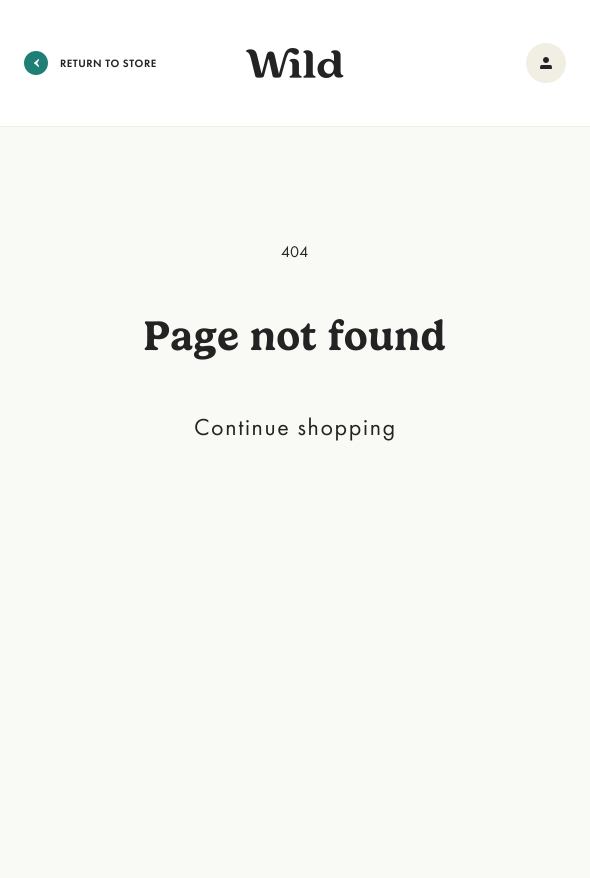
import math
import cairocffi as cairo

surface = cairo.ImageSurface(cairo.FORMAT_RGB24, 590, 878)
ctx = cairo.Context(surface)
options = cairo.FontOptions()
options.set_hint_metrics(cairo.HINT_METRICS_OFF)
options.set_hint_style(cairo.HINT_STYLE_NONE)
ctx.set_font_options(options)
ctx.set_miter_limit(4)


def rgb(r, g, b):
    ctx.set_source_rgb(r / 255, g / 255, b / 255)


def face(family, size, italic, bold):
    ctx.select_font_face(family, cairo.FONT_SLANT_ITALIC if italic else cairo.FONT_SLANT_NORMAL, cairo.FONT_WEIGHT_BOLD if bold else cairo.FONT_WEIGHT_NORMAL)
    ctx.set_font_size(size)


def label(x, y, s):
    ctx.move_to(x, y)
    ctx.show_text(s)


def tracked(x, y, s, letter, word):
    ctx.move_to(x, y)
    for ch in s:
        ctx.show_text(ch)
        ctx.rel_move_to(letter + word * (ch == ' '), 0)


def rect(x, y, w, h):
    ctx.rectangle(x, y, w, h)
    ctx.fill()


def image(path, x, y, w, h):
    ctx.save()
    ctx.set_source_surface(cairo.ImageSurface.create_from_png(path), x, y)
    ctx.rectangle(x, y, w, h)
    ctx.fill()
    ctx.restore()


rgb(249, 249, 246)
ctx.paint()
rgb(255, 255, 255)
rect(0, 0, 590, 126)
rgb(241, 238, 228)
rect(0, 126, 590, 1)
rgb(29, 127, 117)
ctx.arc(36, 63, 12, 0, 2 * math.pi)
ctx.fill()
image('image0.png', 34, 59, 5, 8)
face('Futura PT Medium', 11, 0, 0)
rgb(35, 35, 35)
tracked(60, 67, 'RETURN TO STORE', 0.5, 0)
image('image1.png', 246, 48, 98, 30)
rgb(241, 238, 228)
ctx.arc(546, 63, 20, 0, 2 * math.pi)
ctx.fill()
image('image2.png', 540, 57, 12, 12)
face('Futura PT', 16, 0, 0)
rgb(35, 35, 35)
label(281, 257, '404')
face('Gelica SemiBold', 42, 0, 0)
tracked(143, 350, 'Page not found', 0.4, 0)
face('Futura PT', 24, 0, 0)
tracked(194, 435, 'Continue shopping', 1.6, 0)
surface.write_to_png('render.png')
